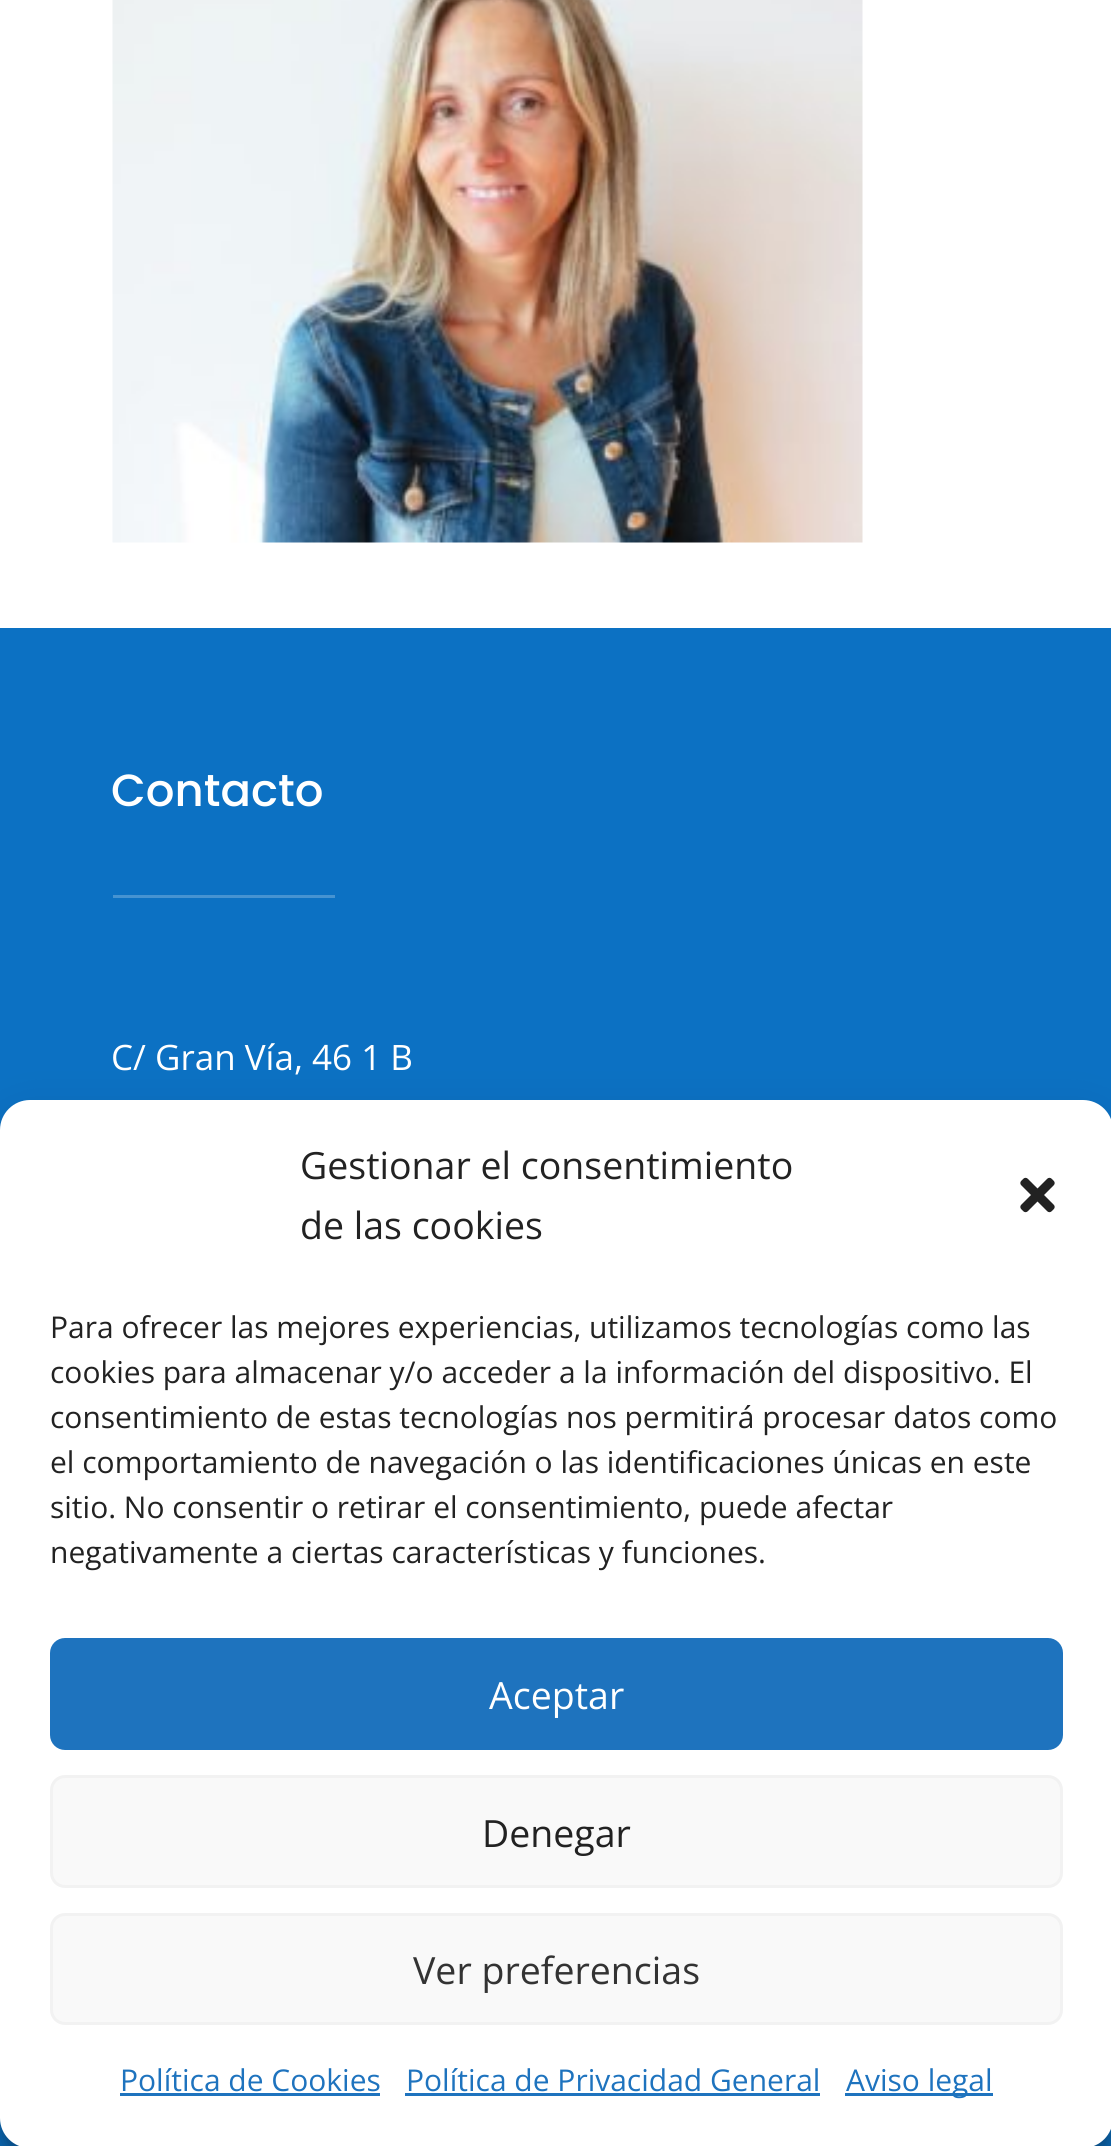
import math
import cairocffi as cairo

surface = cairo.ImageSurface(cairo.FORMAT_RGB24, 1111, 2146)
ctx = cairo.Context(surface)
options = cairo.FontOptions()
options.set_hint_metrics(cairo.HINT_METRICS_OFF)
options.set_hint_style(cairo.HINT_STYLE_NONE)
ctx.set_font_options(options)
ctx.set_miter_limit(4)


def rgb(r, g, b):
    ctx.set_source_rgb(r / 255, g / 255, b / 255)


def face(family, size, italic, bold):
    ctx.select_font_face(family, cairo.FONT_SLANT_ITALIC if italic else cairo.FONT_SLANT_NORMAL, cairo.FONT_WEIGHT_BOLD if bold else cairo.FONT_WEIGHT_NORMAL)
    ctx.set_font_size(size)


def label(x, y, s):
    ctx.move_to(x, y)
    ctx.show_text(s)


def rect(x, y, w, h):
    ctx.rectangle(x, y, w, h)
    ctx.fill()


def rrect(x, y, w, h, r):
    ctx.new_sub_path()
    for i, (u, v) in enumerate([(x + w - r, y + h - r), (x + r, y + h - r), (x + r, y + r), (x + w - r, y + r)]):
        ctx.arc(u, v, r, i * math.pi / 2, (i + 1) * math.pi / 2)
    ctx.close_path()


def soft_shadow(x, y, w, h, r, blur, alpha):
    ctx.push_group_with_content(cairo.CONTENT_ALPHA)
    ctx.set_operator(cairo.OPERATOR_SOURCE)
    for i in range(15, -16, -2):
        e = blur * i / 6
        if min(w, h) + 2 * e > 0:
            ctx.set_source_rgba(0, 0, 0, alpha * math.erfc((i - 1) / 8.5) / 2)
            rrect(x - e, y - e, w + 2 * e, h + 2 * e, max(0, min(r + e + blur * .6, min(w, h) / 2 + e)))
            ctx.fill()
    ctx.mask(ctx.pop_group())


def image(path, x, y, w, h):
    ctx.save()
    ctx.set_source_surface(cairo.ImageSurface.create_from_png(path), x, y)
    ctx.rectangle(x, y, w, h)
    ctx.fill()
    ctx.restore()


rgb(255, 255, 255)
ctx.paint()
image('image0.png', 112, 0, 751, 543)
rgb(12, 113, 195)
rect(0, 628, 1111, 1518)
face('Poppins Medium', 45, 0, 0)
rgb(255, 255, 255)
label(111, 806, 'Contacto')
rgb(70, 147, 209)
rect(113, 895, 222, 3)
face('Open Sans', 35, 0, 0)
rgb(255, 255, 255)
label(111, 1070, 'C/ Gran Vía, 46 1 B')
rgb(0, 0, 0)
soft_shadow(0, 1115, 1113, 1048, 30, 7.5, 0.23)
soft_shadow(0, 1125, 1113, 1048, 30, 25, 0.19)
rgb(255, 255, 255)
rrect(0, 1100, 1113, 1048, 30)
ctx.fill()
face('Open Sans', 37.5, 0, 0)
rgb(34, 34, 34)
label(300, 1179, 'Gestionar el consentimiento')
label(300, 1239, 'de las cookies')
image('image1.png', 1020, 1177, 35, 36)
face('Open Sans', 30, 0, 0)
label(50, 1338, 'Para ofrecer las mejores experiencias, utilizamos tecnologías como las')
label(50, 1383, 'cookies para almacenar y/o acceder a la información del dispositivo. El')
label(50, 1428, 'consentimiento de estas tecnologías nos permitirá procesar datos como')
label(50, 1473, 'el comportamiento de navegación o las identificaciones únicas en este')
label(50, 1518, 'sitio. No consentir o retirar el consentimiento, puede afectar')
label(50, 1563, 'negativamente a ciertas características y funciones.')
rgb(30, 115, 190)
rrect(51.5, 1639.5, 1010, 109, 13.5)
ctx.fill_preserve()
ctx.set_line_width(3)
ctx.stroke()
face('Open Sans', 37.5, 0, 0)
rgb(255, 255, 255)
label(489, 1709, 'Aceptar')
rgb(249, 249, 249)
rrect(51.5, 1776.5, 1010, 110, 13.5)
ctx.fill_preserve()
rgb(242, 242, 242)
ctx.stroke()
rgb(34, 34, 34)
label(482, 1847, 'Denegar')
rgb(249, 249, 249)
rrect(51.5, 1914.5, 1010, 109, 13.5)
ctx.fill_preserve()
rgb(242, 242, 242)
ctx.stroke()
rgb(51, 51, 51)
label(413, 1984, 'Ver preferencias')
face('Open Sans', 30, 0, 0)
rgb(30, 115, 190)
label(120, 2091, 'Política de Cookies')
rect(120, 2093, 260, 3)
label(406, 2091, 'Política de Privacidad General')
rect(405, 2093, 415, 3)
rect(845, 2093, 148, 3)
label(846, 2091, 'Aviso legal')
surface.write_to_png('render.png')
